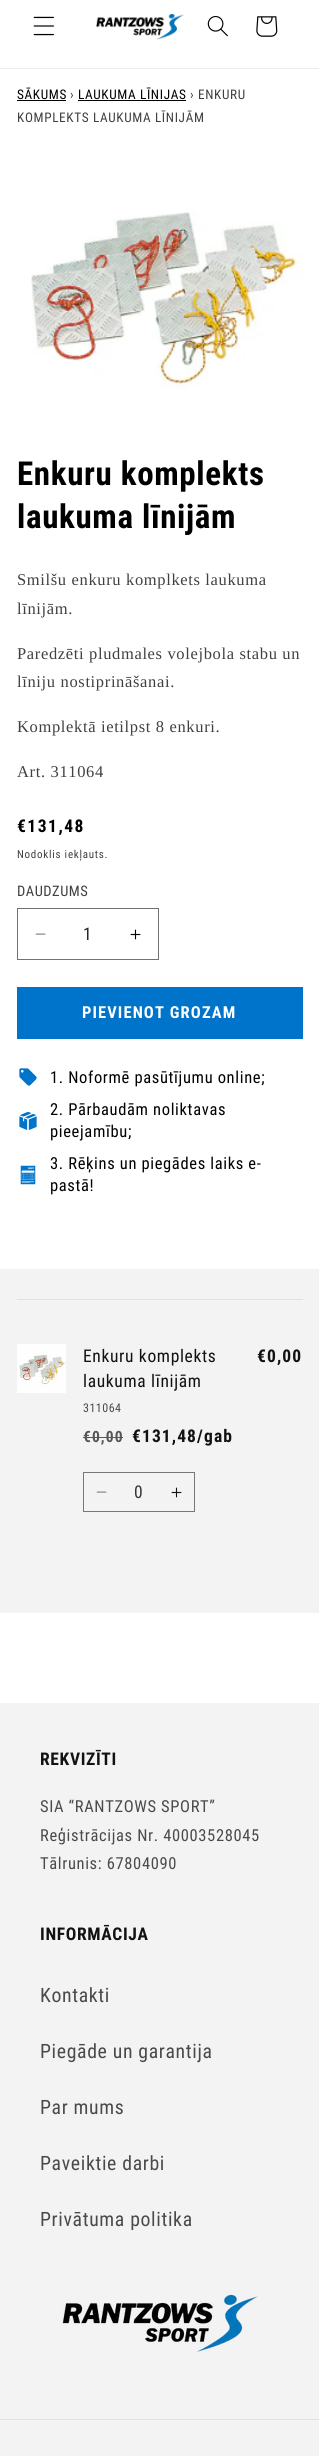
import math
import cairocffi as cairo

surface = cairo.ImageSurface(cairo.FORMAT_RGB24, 319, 2456)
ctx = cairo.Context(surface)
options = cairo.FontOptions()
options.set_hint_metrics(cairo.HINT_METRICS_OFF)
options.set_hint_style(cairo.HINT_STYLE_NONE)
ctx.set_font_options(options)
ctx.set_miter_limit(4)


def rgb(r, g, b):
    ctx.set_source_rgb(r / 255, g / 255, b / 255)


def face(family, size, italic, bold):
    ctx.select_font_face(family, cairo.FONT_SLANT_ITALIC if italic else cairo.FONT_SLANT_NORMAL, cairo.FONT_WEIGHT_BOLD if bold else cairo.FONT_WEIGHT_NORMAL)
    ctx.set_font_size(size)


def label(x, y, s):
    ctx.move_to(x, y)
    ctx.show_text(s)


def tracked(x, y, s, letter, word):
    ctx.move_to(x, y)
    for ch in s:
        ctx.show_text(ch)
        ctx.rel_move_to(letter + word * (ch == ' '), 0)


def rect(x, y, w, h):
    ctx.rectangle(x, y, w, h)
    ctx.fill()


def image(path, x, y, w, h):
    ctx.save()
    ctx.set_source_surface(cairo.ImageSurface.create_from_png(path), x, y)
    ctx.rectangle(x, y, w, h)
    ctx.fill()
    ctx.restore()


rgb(255, 255, 255)
ctx.paint()
rgb(235, 235, 235)
rect(0, 68, 319, 1)
image('image0.png', 33, 16, 21, 20)
image('image1.png', 96, 13, 88, 27)
image('image2.png', 207, 15, 21, 22)
image('image3.png', 256, 16, 22, 21)
face('Roboto Condensed', 13.25, 0, 0)
rgb(0, 0, 0)
tracked(17, 99, 'SĀKUMS', 0.65, 0)
rect(17, 100, 49, 1)
rgb(64, 64, 64)
tracked(70, 99, '›', 0.65, 0)
rgb(0, 0, 0)
tracked(78, 99, 'LAUKUMA LĪNIJAS', 0.65, 0)
rect(78, 100, 108, 1)
rgb(64, 64, 64)
tracked(190, 99, '› ENKURU', 0.65, 0)
tracked(17, 122, 'KOMPLEKTS LAUKUMA LĪNIJĀM', 0.65, 0)
image('image4.png', 31, 212, 272, 177)
face('Roboto Condensed', 33, 0, 1)
rgb(0, 0, 0)
tracked(17, 485, 'Enkuru komplekts', 0.65, 0)
tracked(17, 528, 'laukuma līnijām', 0.65, 0)
face('Liberation Serif', 16.5, 0, 0)
rgb(64, 64, 64)
tracked(17, 585, 'Smilšu enkuru komplkets laukuma', 0.65, 0)
tracked(17, 614, 'līnijām.', 0.65, 0)
tracked(17, 659, 'Paredzēti pludmales volejbola stabu un', 0.65, 0)
tracked(17, 687, 'līniju nostiprināšanai.', 0.65, 0)
tracked(17, 732, 'Komplektā ietilpst 8 enkuri.', 0.65, 0)
tracked(17, 777, 'Art. 311064', 0.65, 0)
face('Roboto Condensed', 17.5, 0, 1)
rgb(0, 0, 0)
tracked(17, 832, '€131,48', 1.5, 0)
face('Roboto Condensed', 11, 0, 0)
rgb(64, 64, 64)
tracked(17, 858, 'Nodoklis iekļauts.', 0.75, 0)
face('Roboto Condensed', 14.5, 0, 0)
tracked(17, 896, 'DAUDZUMS', 0.5, 0)
image('image5.png', 35, 933, 11, 2)
image('image6.png', 130, 929, 11, 11)
ctx.rectangle(17.5, 908.5, 141, 51)
rgb(115, 115, 115)
ctx.set_line_width(1)
ctx.stroke()
face('Roboto Condensed', 17.5, 0, 0)
rgb(38, 38, 38)
label(83, 940, '1')
rgb(0, 116, 203)
rect(17, 987, 286, 52)
face('Roboto Condensed', 16.5, 0, 1)
rgb(255, 255, 255)
tracked(82, 1018, 'PIEVIENOT GROZAM', 1.1, 0)
image('image7.png', 19, 1068, 18, 18)
face('Roboto Condensed', 16.5, 0, 0)
rgb(0, 0, 0)
tracked(50, 1083, '1. Noformē pasūtījumu online;', 0.65, 0)
image('image8.png', 19, 1112, 18, 18)
tracked(50, 1115, '2. Pārbaudām noliktavas', 0.65, 0)
tracked(50, 1137, 'pieejamību;', 0.65, 0)
image('image9.png', 20, 1165, 16, 20)
tracked(50, 1169, '3. Rēķins un piegādes laiks e-', 0.65, 0)
tracked(50, 1191, 'pastā!', 0.65, 0)
rgb(243, 243, 243)
rect(0, 1269, 319, 344)
rgb(225, 225, 225)
rect(17, 1299, 286, 1)
image('image10.png', 17, 1344, 49, 49)
face('Roboto Condensed', 17.5, 0, 0)
rgb(18, 18, 18)
tracked(83, 1362, 'Enkuru komplekts', 0.65, 0)
tracked(83, 1387, 'laukuma līnijām', 0.65, 0)
face('Roboto Condensed', 12, 0, 0)
rgb(74, 74, 74)
tracked(83, 1412, '311064', 0.5, 0)
face('Roboto Condensed', 15.5, 0, 1)
rgb(86, 86, 86)
tracked(83, 1442, '€0,00', 1.1, 0)
rect(83, 1437, 40, 1)
face('Roboto Condensed', 17.5, 0, 1)
rgb(18, 18, 18)
tracked(132, 1442, '€131,48/gab', 1.1, 0)
tracked(257, 1362, '€0,00', 1.1, 0)
image('image11.png', 96, 1491, 11, 2)
image('image12.png', 171, 1487, 11, 11)
ctx.rectangle(83.5, 1472.5, 111, 39)
rgb(119, 119, 119)
ctx.stroke()
face('Roboto Condensed', 17.5, 0, 0)
rgb(52, 52, 52)
label(134, 1498, '0')
rgb(243, 243, 243)
rect(0, 1703, 319, 753)
face('Roboto Condensed', 17.5, 0, 1)
rgb(18, 18, 18)
tracked(40, 1765, 'REKVIZĪTI', 0.65, 0)
face('Roboto Condensed', 16.5, 0, 0)
rgb(74, 74, 74)
tracked(40, 1812, 'SIA “RANTZOWS SPORT”', 0.65, 0)
tracked(40, 1841, 'Reģistrācijas Nr. 40003528045', 0.65, 0)
tracked(40, 1869, 'Tālrunis: 67804090', 0.65, 0)
face('Roboto Condensed', 17.5, 0, 1)
rgb(18, 18, 18)
tracked(40, 1940, 'INFORMĀCIJA', 0.65, 0)
face('Roboto Condensed', 19.75, 0, 0)
rgb(74, 74, 74)
tracked(40, 2002, 'Kontakti', 0.65, 0)
tracked(40, 2058, 'Piegāde un garantija', 0.65, 0)
tracked(40, 2114, 'Par mums', 0.65, 0)
tracked(40, 2170, 'Paveiktie darbi', 0.65, 0)
tracked(40, 2226, 'Privātuma politika', 0.65, 0)
image('image13.png', 62, 2294, 196, 59)
rgb(225, 225, 225)
rect(0, 2419, 319, 1)
surface.write_to_png('render.png')
